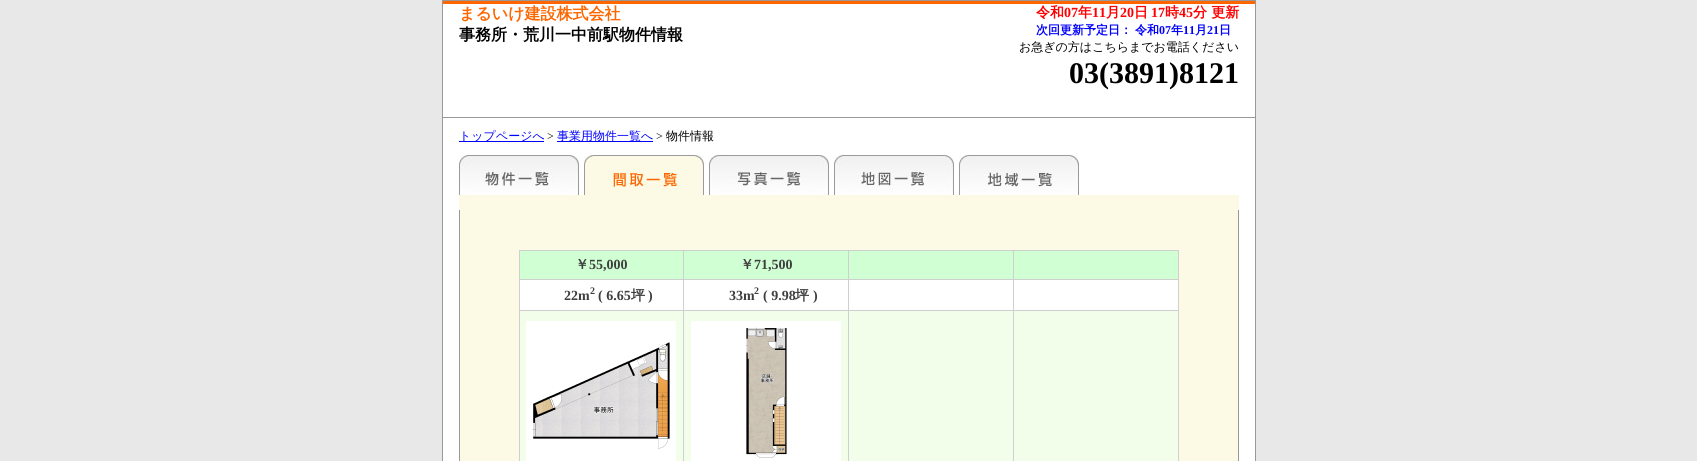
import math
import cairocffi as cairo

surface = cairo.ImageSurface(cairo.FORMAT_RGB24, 1697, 461)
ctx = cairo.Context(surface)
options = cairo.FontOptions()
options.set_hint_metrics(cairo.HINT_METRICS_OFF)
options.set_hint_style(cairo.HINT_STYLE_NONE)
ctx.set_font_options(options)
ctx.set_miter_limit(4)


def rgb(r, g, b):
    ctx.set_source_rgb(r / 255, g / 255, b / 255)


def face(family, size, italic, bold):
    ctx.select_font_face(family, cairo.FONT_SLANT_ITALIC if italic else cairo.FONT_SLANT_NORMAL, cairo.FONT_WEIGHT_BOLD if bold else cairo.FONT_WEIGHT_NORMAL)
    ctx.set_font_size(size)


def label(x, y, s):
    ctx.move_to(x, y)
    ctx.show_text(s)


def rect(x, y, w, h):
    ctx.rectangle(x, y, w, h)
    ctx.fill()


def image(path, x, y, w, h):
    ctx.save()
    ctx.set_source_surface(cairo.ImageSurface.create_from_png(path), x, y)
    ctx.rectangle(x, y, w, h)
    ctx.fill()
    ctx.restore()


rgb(232, 232, 232)
ctx.paint()
rgb(255, 255, 255)
rect(443, 4, 812, 457)
ctx.rectangle(442.5, 0.5, 813, 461)
rgb(153, 153, 153)
ctx.set_line_width(1)
ctx.stroke()
rgb(255, 102, 0)
rect(443, 1, 812, 3)
rgb(153, 153, 153)
rect(443, 117, 812, 1)
face('WenQuanYi Zen Hei', 16, 0, 1)
rgb(255, 102, 0)
label(459, 19, 'まるいけ建設株式会社')
rgb(0, 0, 0)
label(459, 40, '事務所・荒川一中前駅物件情報')
face('WenQuanYi Zen Hei', 14, 0, 1)
rgb(255, 0, 0)
label(1036, 17, '令和')
face('Liberation Serif', 14, 0, 1)
label(1064, 17, '07')
face('WenQuanYi Zen Hei', 14, 0, 1)
label(1078, 17, '年')
face('Liberation Serif', 14, 0, 1)
label(1092, 17, '11')
face('WenQuanYi Zen Hei', 14, 0, 1)
label(1106, 17, '月')
face('Liberation Serif', 14, 0, 1)
label(1120, 17, '20')
face('WenQuanYi Zen Hei', 14, 0, 1)
label(1134, 17, '日')
face('Liberation Serif', 14, 0, 1)
label(1151, 17, '17')
face('WenQuanYi Zen Hei', 14, 0, 1)
label(1165, 17, '時')
face('Liberation Serif', 14, 0, 1)
label(1179, 17, '45')
face('WenQuanYi Zen Hei', 14, 0, 1)
label(1193, 17, '分 更新')
face('WenQuanYi Zen Hei', 12, 0, 1)
rgb(0, 0, 255)
label(1036, 34, '次回更新予定日：')
label(1135, 34, '令和')
face('Liberation Serif', 12, 0, 1)
label(1159, 34, '07')
face('WenQuanYi Zen Hei', 12, 0, 1)
label(1171, 34, '年')
face('Liberation Serif', 12, 0, 1)
label(1183, 34, '11')
face('WenQuanYi Zen Hei', 12, 0, 1)
label(1195, 34, '月')
face('Liberation Serif', 12, 0, 1)
label(1207, 34, '21')
face('WenQuanYi Zen Hei', 12, 0, 1)
label(1219, 34, '日')
face('WenQuanYi Zen Hei Medium', 12, 0, 0)
rgb(0, 0, 0)
label(1019, 51, 'お急ぎの方はこちらまでお電話ください')
face('Liberation Serif', 30, 0, 1)
label(1069, 83, '03(3891)8121')
rgb(0, 0, 255)
rect(459, 141, 85, 1)
face('WenQuanYi Zen Hei Medium', 12, 0, 0)
label(459, 140, 'トップページへ')
face('Liberation Serif', 12, 0, 0)
rgb(0, 0, 0)
label(547, 140, '>')
rgb(0, 0, 255)
rect(557, 141, 96, 1)
face('WenQuanYi Zen Hei Medium', 12, 0, 0)
label(557, 140, '事業用物件一覧へ')
face('Liberation Serif', 12, 0, 0)
rgb(0, 0, 0)
label(656, 140, '>')
face('WenQuanYi Zen Hei Medium', 12, 0, 0)
label(666, 140, '物件情報')
image('image0.png', 459, 155, 120, 40)
image('image1.png', 584, 155, 120, 40)
image('image2.png', 709, 155, 120, 40)
image('image3.png', 834, 155, 120, 40)
image('image4.png', 959, 155, 120, 40)
rgb(252, 250, 228)
rect(459, 195, 780, 15)
rect(460, 210, 778, 251)
rgb(153, 153, 153)
rect(1238, 210, 1, 251)
rect(459, 210, 1, 251)
rgb(207, 207, 207)
rect(519, 250, 660, 1)
rect(1178, 250, 1, 211)
rect(519, 250, 1, 211)
rgb(208, 255, 211)
rect(520, 251, 163, 28)
face('WenQuanYi Zen Hei', 14, 0, 1)
rgb(63, 63, 63)
label(575, 269, '￥')
face('Liberation Serif', 14, 0, 1)
label(589, 269, '55,000')
rgb(208, 255, 211)
rect(684, 251, 164, 28)
rgb(207, 207, 207)
rect(1013, 279, 166, 1)
rect(1013, 310, 166, 1)
rect(1013, 310, 1, 151)
rect(848, 310, 166, 1)
rect(1013, 279, 1, 32)
rect(848, 279, 166, 1)
rect(848, 310, 1, 151)
rect(683, 310, 166, 1)
rect(848, 279, 1, 32)
rect(683, 279, 166, 1)
rect(683, 310, 1, 151)
rect(519, 310, 165, 1)
rect(683, 279, 1, 32)
rect(519, 279, 165, 1)
rect(683, 250, 1, 30)
face('WenQuanYi Zen Hei', 14, 0, 1)
rgb(63, 63, 63)
label(740, 269, '￥')
face('Liberation Serif', 14, 0, 1)
label(754, 269, '71,500')
rgb(208, 255, 211)
rect(849, 251, 164, 28)
rgb(207, 207, 207)
rect(848, 250, 1, 30)
rgb(208, 255, 211)
rect(1014, 251, 164, 28)
rgb(207, 207, 207)
rect(1013, 250, 1, 30)
rgb(255, 255, 255)
rect(520, 280, 163, 30)
rgb(63, 63, 63)
label(564, 300, '22m')
face('Liberation Serif', 10, 0, 1)
label(590, 294, '2')
face('Liberation Serif', 14, 0, 1)
label(598, 300, '( 6.65')
face('WenQuanYi Zen Hei', 14, 0, 1)
label(631, 300, '坪')
face('Liberation Serif', 14, 0, 1)
label(648, 300, ')')
rgb(255, 255, 255)
rect(684, 280, 164, 30)
rgb(63, 63, 63)
label(729, 300, '33m')
face('Liberation Serif', 10, 0, 1)
label(754, 294, '2')
face('Liberation Serif', 14, 0, 1)
label(763, 300, '( 9.98')
face('WenQuanYi Zen Hei', 14, 0, 1)
label(795, 300, '坪')
face('Liberation Serif', 14, 0, 1)
label(813, 300, ')')
rgb(255, 255, 255)
rect(849, 280, 164, 30)
rect(1014, 280, 164, 30)
rgb(242, 253, 234)
rect(520, 311, 163, 150)
image('image5.png', 526, 321, 150, 140)
rect(684, 311, 164, 150)
image('image6.png', 691, 321, 150, 140)
rect(849, 311, 164, 150)
rect(1014, 311, 164, 150)
surface.write_to_png('render.png')
